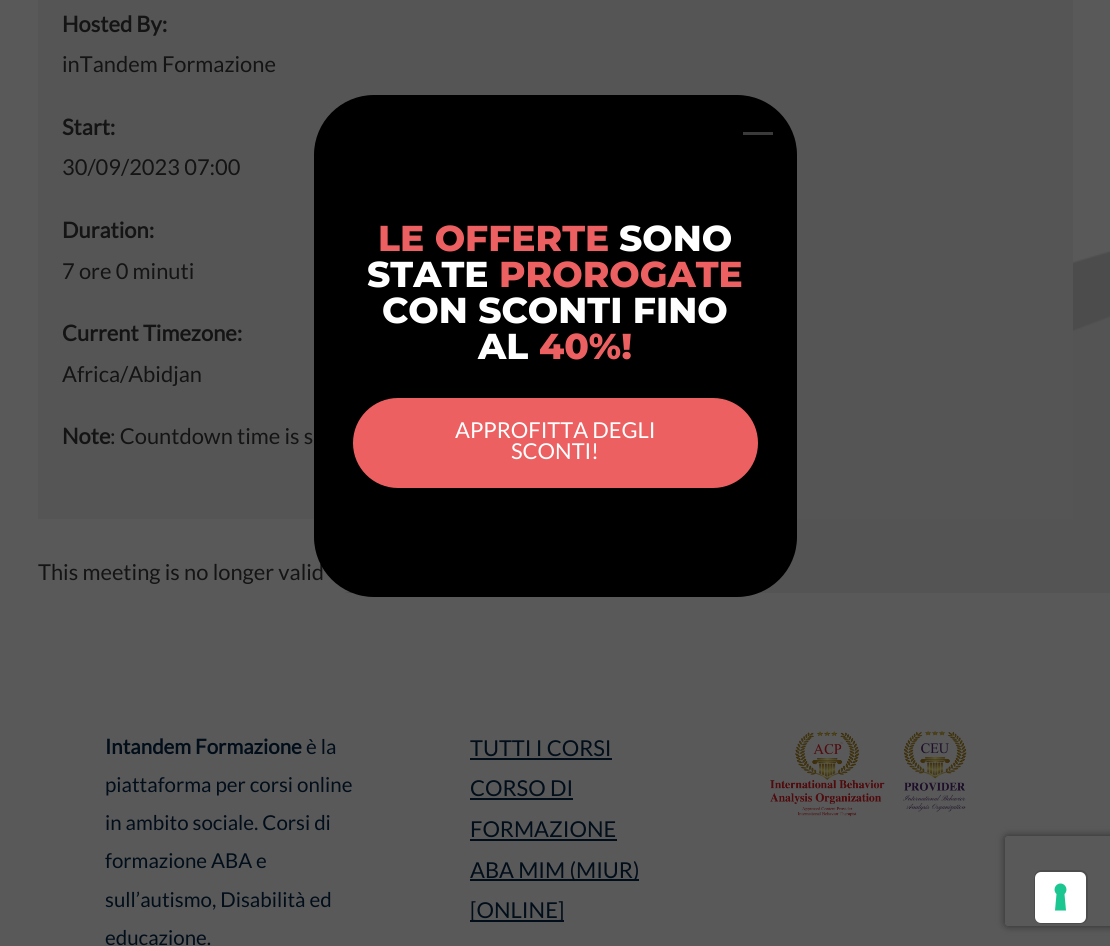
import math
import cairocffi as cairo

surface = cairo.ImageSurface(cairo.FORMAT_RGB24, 1110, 946)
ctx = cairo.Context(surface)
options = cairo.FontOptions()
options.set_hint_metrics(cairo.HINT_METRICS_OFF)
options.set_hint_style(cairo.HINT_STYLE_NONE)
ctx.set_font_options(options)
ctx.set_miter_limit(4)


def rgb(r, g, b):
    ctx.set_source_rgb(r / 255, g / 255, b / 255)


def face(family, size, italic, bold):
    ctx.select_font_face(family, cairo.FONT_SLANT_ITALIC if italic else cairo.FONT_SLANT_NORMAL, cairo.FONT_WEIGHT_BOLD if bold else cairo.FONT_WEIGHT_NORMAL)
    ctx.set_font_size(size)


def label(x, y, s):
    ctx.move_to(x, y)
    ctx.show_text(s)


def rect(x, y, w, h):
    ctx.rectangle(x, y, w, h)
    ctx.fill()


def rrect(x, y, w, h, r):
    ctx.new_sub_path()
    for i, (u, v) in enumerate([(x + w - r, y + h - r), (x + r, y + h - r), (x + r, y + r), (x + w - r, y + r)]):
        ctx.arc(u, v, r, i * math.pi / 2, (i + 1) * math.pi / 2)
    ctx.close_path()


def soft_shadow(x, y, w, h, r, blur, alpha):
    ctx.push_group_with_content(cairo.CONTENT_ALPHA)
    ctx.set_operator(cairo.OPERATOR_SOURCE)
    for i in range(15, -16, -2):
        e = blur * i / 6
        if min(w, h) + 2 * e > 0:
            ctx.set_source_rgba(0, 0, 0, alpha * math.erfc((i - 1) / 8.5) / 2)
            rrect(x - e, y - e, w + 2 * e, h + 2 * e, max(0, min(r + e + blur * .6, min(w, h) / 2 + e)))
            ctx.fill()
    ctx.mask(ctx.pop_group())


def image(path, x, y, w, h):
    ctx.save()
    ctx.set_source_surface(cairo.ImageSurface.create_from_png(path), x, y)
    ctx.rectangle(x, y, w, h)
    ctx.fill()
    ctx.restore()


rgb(89, 89, 89)
ctx.paint()
image('image0.png', 0, 251, 1110, 342)
rgb(85, 85, 85)
rect(38, 0, 1035, 519)
face('Lato', 21.9, 0, 1)
rgb(20, 20, 20)
label(62, 32, 'Hosted By:')
face('Lato', 21.9, 0, 0)
label(62, 72, 'inTandem Formazione')
face('Lato', 21.9, 0, 1)
label(62, 135, 'Start:')
face('Lato', 21.9, 0, 0)
label(62, 175, '30/09/2023 07:00')
face('Lato', 21.9, 0, 1)
label(62, 238, 'Duration:')
face('Lato', 21.9, 0, 0)
label(62, 279, '7 ore 0 minuti')
face('Lato', 21.9, 0, 1)
label(62, 341, 'Current Timezone:')
face('Lato', 21.9, 0, 0)
label(62, 382, 'Africa/Abidjan')
face('Lato', 21.9, 0, 1)
label(62, 444, 'Note')
face('Lato', 21.9, 0, 0)
label(110, 444, ': Countdown time is s')
label(38, 580, 'This meeting is no longer valid')
face('Lato', 20.5, 0, 1)
rgb(1, 14, 26)
label(105, 754, 'Intandem Formazione')
face('Lato', 20.5, 0, 0)
label(306, 754, 'è la')
label(105, 792, 'piattaforma per corsi online')
label(105, 830, 'in ambito sociale. Corsi di')
label(105, 868, 'formazione ABA e')
label(105, 907, 'sull’autismo, Disabilità ed')
label(105, 945, 'educazione.')
face('Lato', 21.9, 0, 0)
label(470, 756, 'TUTTI I CORSI')
rect(470, 758, 142, 2)
label(470, 796, 'CORSO DI')
rect(470, 798, 103, 2)
label(470, 837, 'FORMAZIONE')
rect(470, 839, 147, 2)
rect(470, 879, 169, 2)
label(470, 878, 'ABA MIM (MIUR)')
rect(470, 920, 94, 2)
label(470, 918, '[ONLINE]')
image('image1.png', 770, 731, 197, 86)
rgb(0, 0, 0)
rrect(314, 95, 483, 502, 60)
ctx.fill()
rgb(58, 58, 58)
rect(743, 132, 30, 3)
face('Montserrat ExtraBold', 36, 0, 0)
rgb(237, 96, 98)
label(378, 251, 'LE OFFERTE')
rgb(255, 255, 255)
label(619, 251, 'SONO')
label(367, 287, 'STATE')
rgb(237, 96, 98)
label(499, 287, 'PROROGATE')
rgb(255, 255, 255)
label(382, 323, 'CON SCONTI FINO')
label(478, 359, 'AL')
rgb(237, 96, 98)
label(539, 359, '40%!')
rrect(353, 398, 405, 90, 45)
ctx.fill()
face('Lato', 21.9, 0, 0)
rgb(255, 255, 255)
label(455, 438, 'APPROFITTA DEGLI')
label(511, 459, 'SCONTI!')
ctx.save()
ctx.set_fill_rule(cairo.FILL_RULE_EVEN_ODD)
ctx.new_path()
ctx.move_to(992, 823)
ctx.line_to(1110, 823)
ctx.line_to(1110, 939)
ctx.line_to(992, 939)
ctx.close_path()
ctx.move_to(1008, 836)
ctx.line_to(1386, 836)
ctx.curve_to(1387.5, 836, 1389, 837.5, 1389, 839)
ctx.line_to(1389, 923)
ctx.curve_to(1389, 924.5, 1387.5, 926, 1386, 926)
ctx.line_to(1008, 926)
ctx.curve_to(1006.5, 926, 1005, 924.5, 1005, 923)
ctx.line_to(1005, 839)
ctx.curve_to(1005, 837.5, 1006.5, 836, 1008, 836)
ctx.close_path()
ctx.clip()
rgb(45, 45, 45)
soft_shadow(1005, 836, 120, 90, 3, 4, 1)
ctx.restore()
rrect(1035, 871, 52, 52, 7)
rgb(76, 76, 76)
ctx.stroke()
rgb(255, 255, 255)
rrect(1035, 872, 51, 51, 6)
ctx.fill()
rgb(28, 198, 145)
ctx.set_fill_rule(cairo.FILL_RULE_EVEN_ODD)
ctx.new_path()
ctx.move_to(1060.5, 883.5)
ctx.curve_to(1066, 883.5, 1068.5, 890.5, 1064.5, 894)
ctx.line_to(1066, 910.5)
ctx.line_to(1055, 910.5)
ctx.line_to(1056.5, 894)
ctx.curve_to(1052.5, 890.5, 1055, 883.5, 1060.5, 883.5)
ctx.close_path()
ctx.fill()
surface.write_to_png('render.png')
